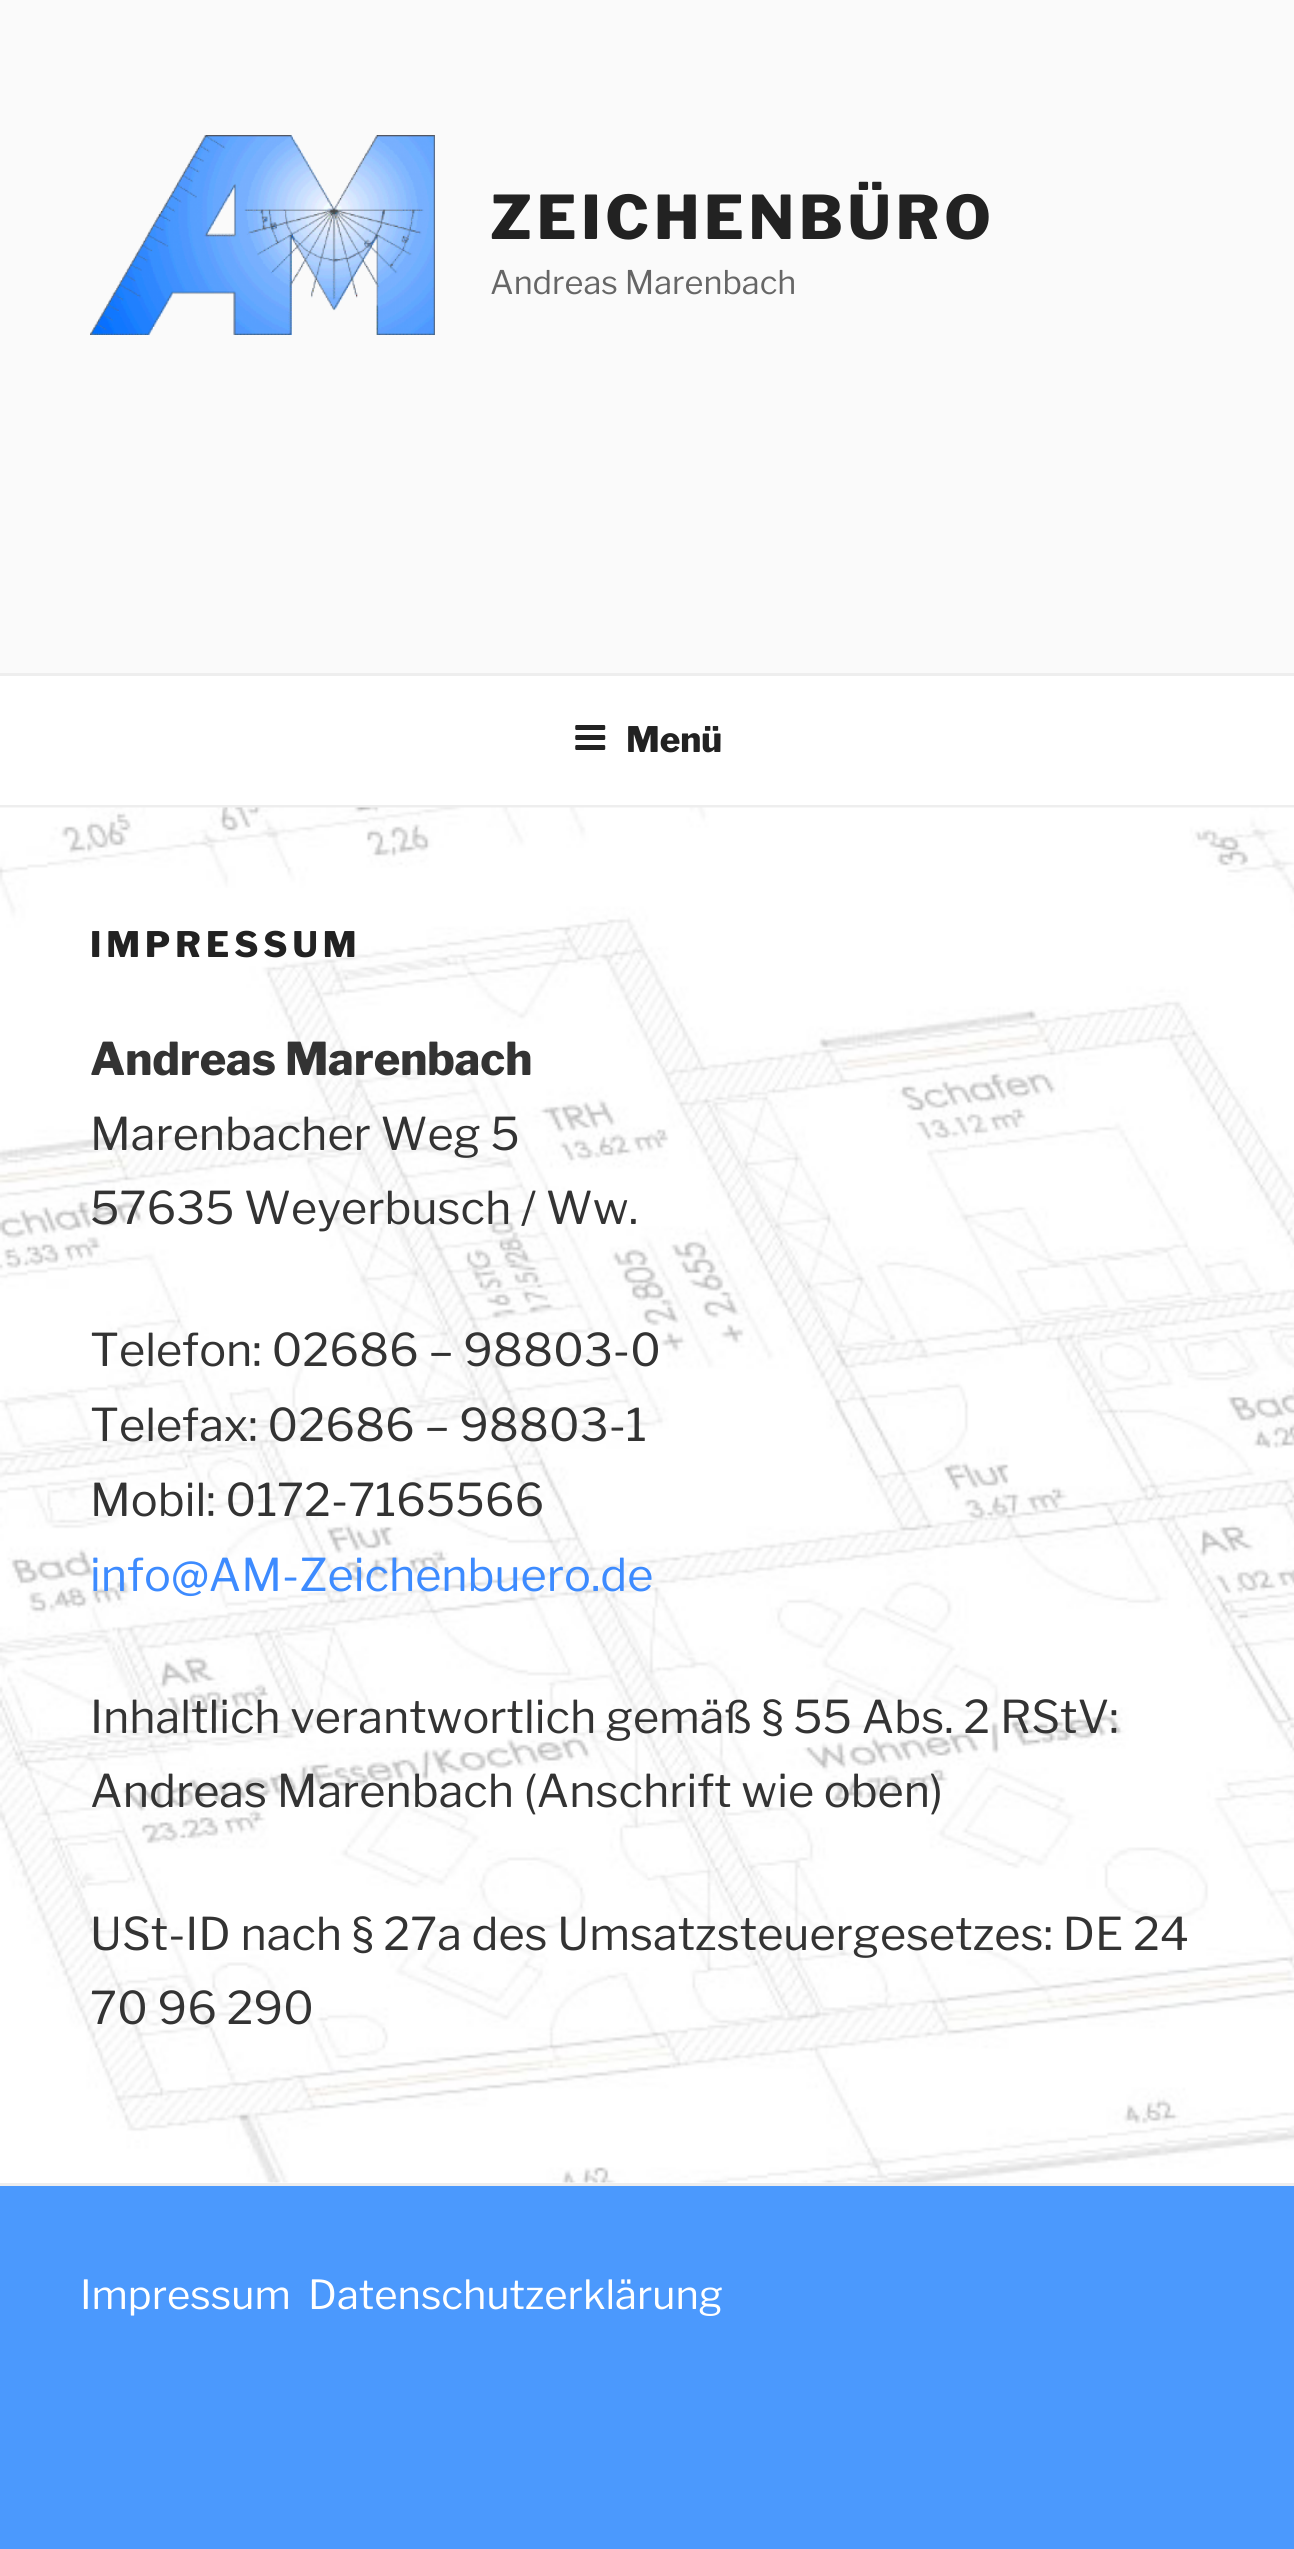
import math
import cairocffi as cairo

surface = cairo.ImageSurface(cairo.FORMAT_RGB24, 1294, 2549)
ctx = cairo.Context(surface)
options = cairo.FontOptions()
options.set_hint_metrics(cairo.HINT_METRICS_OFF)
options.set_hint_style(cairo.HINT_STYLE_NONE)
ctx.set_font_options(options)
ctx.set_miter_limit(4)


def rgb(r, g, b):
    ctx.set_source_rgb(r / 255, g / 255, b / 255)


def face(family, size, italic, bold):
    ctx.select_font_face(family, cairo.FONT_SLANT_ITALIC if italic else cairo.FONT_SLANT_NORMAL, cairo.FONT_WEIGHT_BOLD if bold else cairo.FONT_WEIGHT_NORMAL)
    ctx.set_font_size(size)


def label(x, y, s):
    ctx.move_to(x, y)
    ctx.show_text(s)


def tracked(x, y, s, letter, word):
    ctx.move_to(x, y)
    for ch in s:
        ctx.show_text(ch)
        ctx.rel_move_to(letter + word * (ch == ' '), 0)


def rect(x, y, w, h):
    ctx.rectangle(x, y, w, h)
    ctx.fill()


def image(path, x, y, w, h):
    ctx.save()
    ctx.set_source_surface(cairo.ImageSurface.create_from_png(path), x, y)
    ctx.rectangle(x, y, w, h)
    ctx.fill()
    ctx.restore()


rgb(250, 250, 250)
ctx.paint()
image('image0.png', 90, 135, 345, 200)
face('Libre Franklin Thin', 60, 0, 0)
rgb(34, 34, 34)
tracked(490, 239, 'ZEICHENBÜRO', 4.75, 0)
face('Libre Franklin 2 Thin', 32.5, 0, 0)
rgb(102, 102, 102)
label(490, 294, 'Andreas Marenbach')
rgb(255, 255, 255)
rect(0, 676, 1294, 129)
rgb(238, 238, 238)
rect(0, 673, 1294, 3)
rect(0, 805, 1294, 3)
image('image1.png', 575, 725, 31, 25)
face('Libre Franklin Thin', 35, 0, 0)
rgb(34, 34, 34)
label(626, 752, 'Menü')
rgb(255, 255, 255)
rect(0, 2182, 1294, 1)
image('image2.png', 0, 807, 1294, 1376)
rgb(34, 34, 34)
tracked(90, 957, 'IMPRESSUM', 5, 0)
face('Libre Franklin Thin', 45, 0, 0)
rgb(51, 51, 51)
label(90, 1075, 'Andreas Marenbach')
face('Libre Franklin 2 Thin', 45, 0, 0)
label(90, 1150, 'Marenbacher Weg 5')
label(90, 1224, '57635 Weyerbusch / Ww.')
label(90, 1366, 'Telefon: 02686 – 98803-0')
label(90, 1441, 'Telefax: 02686 – 98803-1')
label(90, 1516, 'Mobil: 0172-7165566')
rgb(61, 139, 255)
label(90, 1591, 'info@AM-Zeichenbuero.de')
rgb(51, 51, 51)
label(90, 1733, 'Inhaltlich verantwortlich gemäß § 55 Abs. 2 RStV:')
label(90, 1807, 'Andreas Marenbach (Anschrift wie oben)')
label(90, 1950, 'USt-ID nach § 27a des Umsatzsteuergesetzes: DE 24')
label(90, 2024, '70 96 290')
rgb(75, 153, 253)
rect(0, 2186, 1294, 363)
rgb(238, 238, 238)
rect(0, 2183, 1294, 3)
face('Libre Franklin 2 Thin', 40, 0, 0)
rgb(255, 255, 255)
label(80, 2309, 'Impressum')
label(308, 2309, 'Datenschutzerklärung')
surface.write_to_png('render.png')
